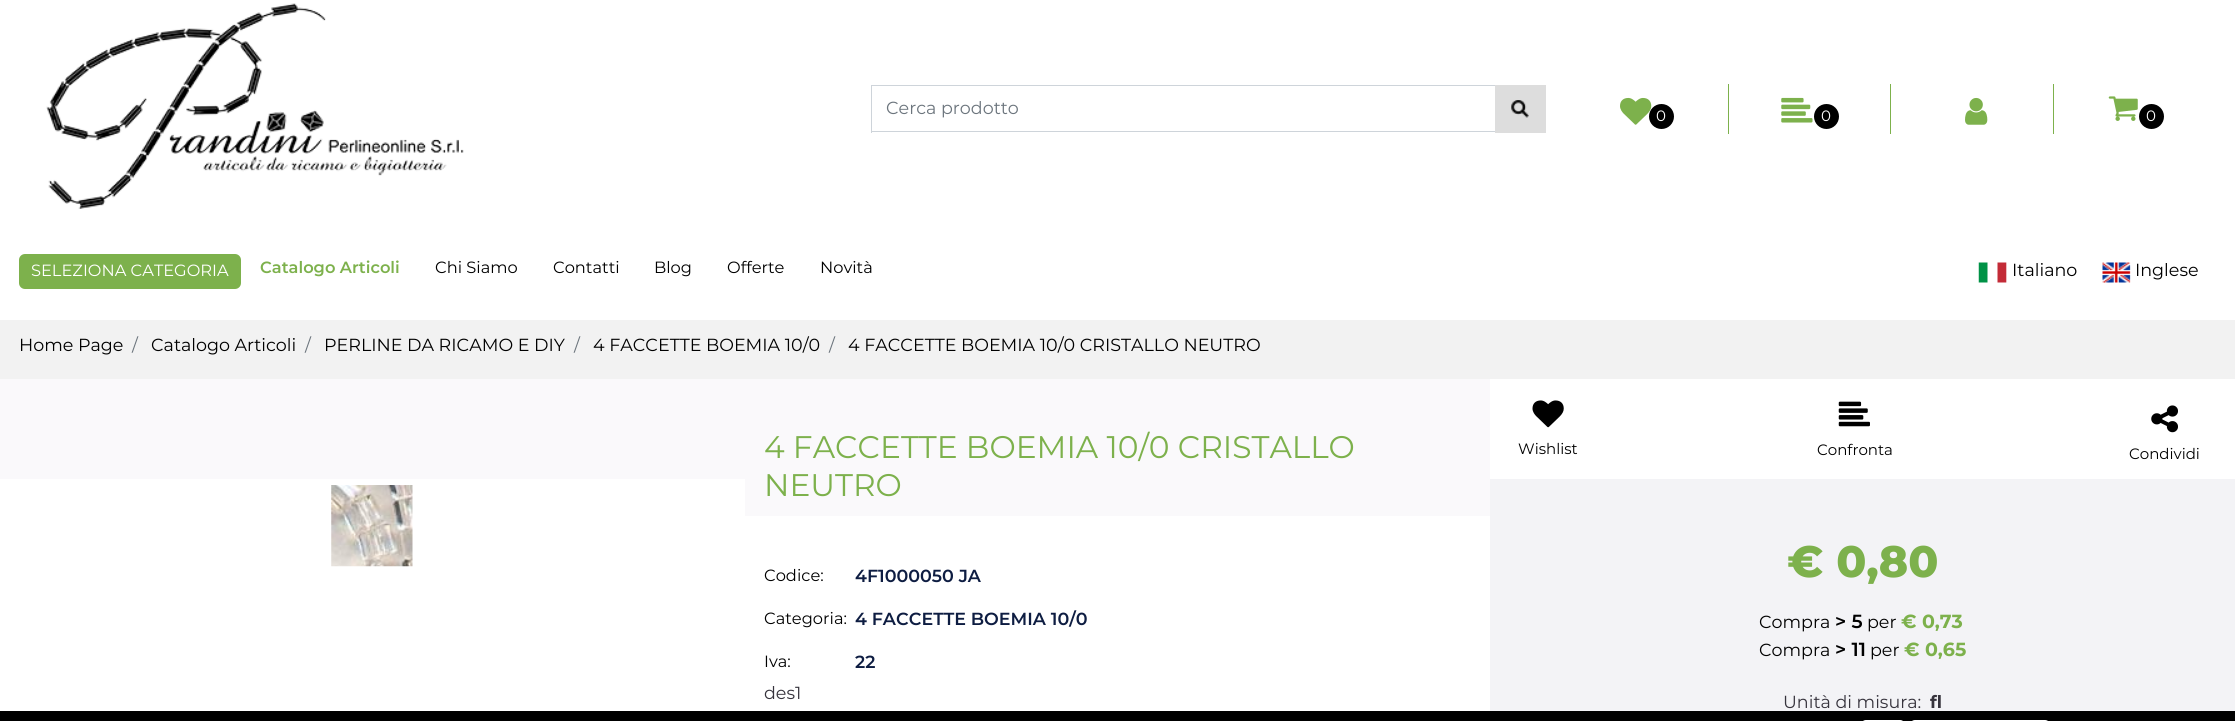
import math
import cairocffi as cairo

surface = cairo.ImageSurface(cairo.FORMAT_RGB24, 2235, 721)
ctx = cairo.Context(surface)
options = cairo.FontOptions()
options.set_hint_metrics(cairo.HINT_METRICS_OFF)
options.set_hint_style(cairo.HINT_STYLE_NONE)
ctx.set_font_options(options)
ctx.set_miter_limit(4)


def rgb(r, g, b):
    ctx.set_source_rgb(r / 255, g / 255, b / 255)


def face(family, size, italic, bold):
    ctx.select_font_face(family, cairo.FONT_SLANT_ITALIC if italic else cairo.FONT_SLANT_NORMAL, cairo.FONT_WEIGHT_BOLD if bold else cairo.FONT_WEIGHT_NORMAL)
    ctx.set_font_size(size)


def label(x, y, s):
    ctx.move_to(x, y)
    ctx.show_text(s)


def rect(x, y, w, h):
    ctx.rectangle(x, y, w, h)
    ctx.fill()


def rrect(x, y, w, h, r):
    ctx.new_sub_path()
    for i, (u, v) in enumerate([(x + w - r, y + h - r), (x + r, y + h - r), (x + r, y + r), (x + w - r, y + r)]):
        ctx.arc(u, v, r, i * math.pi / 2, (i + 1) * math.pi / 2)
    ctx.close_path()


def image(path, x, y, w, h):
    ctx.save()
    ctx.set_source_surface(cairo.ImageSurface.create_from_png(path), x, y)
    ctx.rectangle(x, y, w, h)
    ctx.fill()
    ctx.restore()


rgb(242, 242, 242)
ctx.paint()
rgb(255, 255, 255)
rect(0, 0, 2235, 320)
image('image0.png', 46, 3, 418, 206)
rgb(206, 212, 218)
rect(871, 85, 624, 1)
rect(871, 131, 624, 1)
rect(871, 85, 1, 48)
face('Montserrat', 17.5, 0, 0)
rgb(108, 117, 125)
label(886, 114, 'Cerca prodotto')
rgb(221, 221, 221)
rect(1495, 85, 51, 48)
image('image1.png', 1511, 100, 18, 18)
rgb(125, 177, 76)
rect(1728, 84, 1, 50)
image('image2.png', 1620, 97, 32, 28)
rgb(0, 0, 0)
ctx.arc(1661.5, 116.5, 12.5, 0, 2 * math.pi)
ctx.fill()
face('Montserrat', 15, 0, 0)
rgb(255, 255, 255)
label(1656, 121, '0')
image('image3.png', 1781, 97, 32, 26)
rgb(0, 0, 0)
ctx.arc(1826.5, 116.5, 12.5, 0, 2 * math.pi)
ctx.fill()
rgb(255, 255, 255)
label(1821, 121, '0')
rgb(125, 177, 76)
rect(2053, 84, 1, 50)
rect(1890, 84, 1, 50)
image('image4.png', 1965, 97, 23, 28)
image('image5.png', 2108, 96, 30, 25)
rgb(0, 0, 0)
ctx.arc(2151.5, 116.5, 12.5, 0, 2 * math.pi)
ctx.fill()
rgb(255, 255, 255)
label(2146, 121, '0')
rgb(125, 177, 76)
rrect(19, 254, 222, 35, 6)
ctx.fill()
face('Montserrat', 16.25, 0, 0)
rgb(255, 255, 255)
label(31, 276, 'SELEZIONA CATEGORIA')
face('Montserrat SemiBold', 16.25, 0, 0)
rgb(125, 177, 76)
label(260, 273, 'Catalogo Articoli')
face('Montserrat', 16.25, 0, 0)
rgb(0, 0, 0)
label(435, 273, 'Chi Siamo')
label(553, 273, 'Contatti')
label(654, 273, 'Blog')
label(727, 273, 'Offerte')
label(820, 273, 'Novità')
image('image6.png', 1978, 262, 29, 21)
face('Montserrat', 17.5, 0, 0)
label(2012, 276, 'Italiano')
image('image7.png', 2102, 262, 29, 21)
label(2135, 276, 'Inglese')
label(19, 351, 'Home Page')
rgb(108, 117, 125)
label(132, 351, '/')
rgb(0, 0, 0)
label(151, 351, 'Catalogo Articoli')
rgb(108, 117, 125)
label(305, 351, '/')
rgb(0, 0, 0)
label(324, 351, 'PERLINE DA RICAMO E DIY')
rgb(108, 117, 125)
label(574, 351, '/')
rgb(0, 0, 0)
label(593, 351, '4 FACCETTE BOEMIA 10/0')
rgb(108, 117, 125)
label(829, 351, '/')
rgb(0, 0, 0)
label(848, 351, '4 FACCETTE BOEMIA 10/0 CRISTALLO NEUTRO')
rgb(255, 255, 255)
rect(0, 479, 1490, 232)
rgb(250, 249, 251)
rect(0, 379, 745, 100)
image('image8.png', 331, 485, 82, 82)
rect(745, 379, 745, 137)
face('Montserrat', 31.25, 0, 0)
rgb(125, 177, 76)
label(764, 458, '4 FACCETTE BOEMIA 10/0 CRISTALLO')
label(764, 496, 'NEUTRO')
face('Montserrat', 16.25, 0, 0)
rgb(0, 0, 0)
label(764, 581, 'Codice:')
face('Montserrat SemiBold', 17.5, 0, 0)
rgb(14, 29, 66)
label(855, 582, '4F1000050 JA')
face('Montserrat', 16.25, 0, 0)
rgb(0, 0, 0)
label(764, 624, 'Categoria:')
face('Montserrat SemiBold', 17.5, 0, 0)
rgb(14, 29, 66)
label(855, 625, '4 FACCETTE BOEMIA 10/0')
face('Montserrat', 16.25, 0, 0)
rgb(0, 0, 0)
label(764, 667, 'Iva:')
face('Montserrat SemiBold', 17.5, 0, 0)
rgb(14, 29, 66)
label(855, 668, '22')
face('Montserrat', 17.5, 0, 0)
rgb(54, 51, 60)
label(764, 699, 'des1')
rgb(243, 243, 246)
rect(1490, 479, 745, 232)
rgb(255, 255, 255)
rect(1490, 379, 745, 100)
image('image9.png', 1532, 400, 32, 28)
face('Montserrat', 15, 0, 0)
rgb(0, 0, 0)
label(1518, 454, 'Wishlist')
image('image10.png', 1838, 401, 32, 26)
label(1817, 455, 'Confronta')
image('image11.png', 2151, 405, 27, 28)
label(2129, 459, 'Condividi')
face('Montserrat ExtraBold', 44, 0, 0)
rgb(125, 177, 76)
label(1787, 577, '€ 0,80')
face('Montserrat', 17.5, 0, 0)
rgb(0, 0, 0)
label(1759, 628, 'Compra')
face('Montserrat SemiBold', 19, 0, 0)
label(1835, 628, '> 5')
face('Montserrat', 17.5, 0, 0)
label(1867, 628, 'per')
face('Montserrat', 19, 0, 1)
rgb(125, 177, 76)
label(1901, 628, '€ 0,73')
face('Montserrat', 17.5, 0, 0)
rgb(0, 0, 0)
label(1759, 656, 'Compra')
face('Montserrat SemiBold', 19, 0, 0)
label(1835, 656, '> 11')
face('Montserrat', 17.5, 0, 0)
label(1870, 656, 'per')
face('Montserrat', 19, 0, 1)
rgb(125, 177, 76)
label(1904, 656, '€ 0,65')
face('Montserrat', 17.5, 0, 0)
rgb(54, 51, 60)
label(1783, 708, 'Unità di misura:')
face('Montserrat', 17.5, 0, 1)
label(1930, 708, 'fl')
rgb(0, 0, 0)
rect(0, 711, 2235, 10)
rgb(255, 255, 255)
rrect(1861, 720, 44, 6, 5)
ctx.fill()
rrect(1910, 720, 140, 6, 5)
ctx.fill()
surface.write_to_png('render.png')
